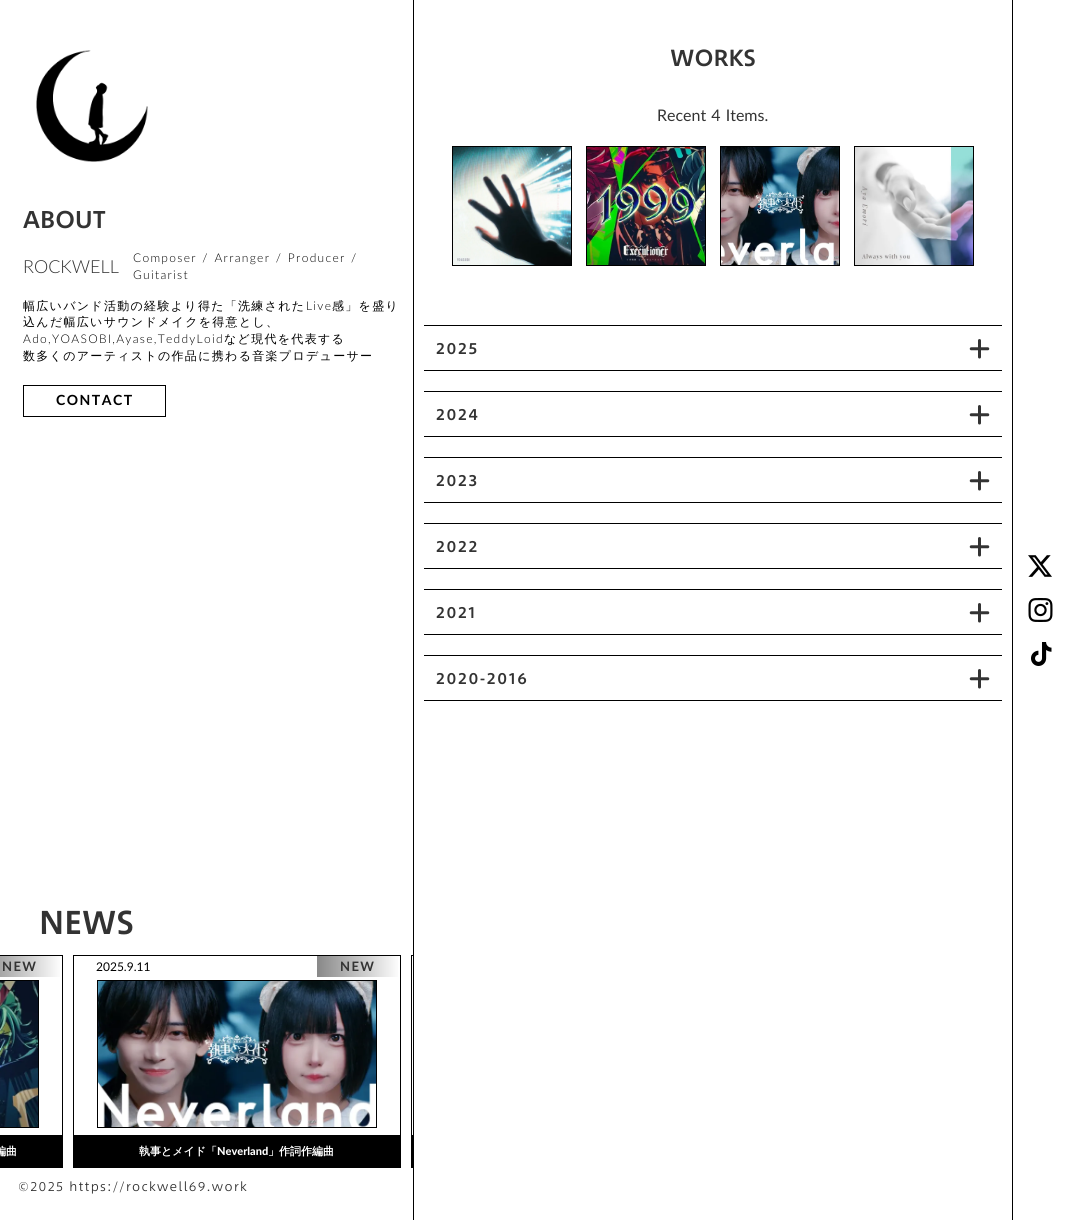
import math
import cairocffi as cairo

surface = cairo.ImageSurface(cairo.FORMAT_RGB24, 1065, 1220)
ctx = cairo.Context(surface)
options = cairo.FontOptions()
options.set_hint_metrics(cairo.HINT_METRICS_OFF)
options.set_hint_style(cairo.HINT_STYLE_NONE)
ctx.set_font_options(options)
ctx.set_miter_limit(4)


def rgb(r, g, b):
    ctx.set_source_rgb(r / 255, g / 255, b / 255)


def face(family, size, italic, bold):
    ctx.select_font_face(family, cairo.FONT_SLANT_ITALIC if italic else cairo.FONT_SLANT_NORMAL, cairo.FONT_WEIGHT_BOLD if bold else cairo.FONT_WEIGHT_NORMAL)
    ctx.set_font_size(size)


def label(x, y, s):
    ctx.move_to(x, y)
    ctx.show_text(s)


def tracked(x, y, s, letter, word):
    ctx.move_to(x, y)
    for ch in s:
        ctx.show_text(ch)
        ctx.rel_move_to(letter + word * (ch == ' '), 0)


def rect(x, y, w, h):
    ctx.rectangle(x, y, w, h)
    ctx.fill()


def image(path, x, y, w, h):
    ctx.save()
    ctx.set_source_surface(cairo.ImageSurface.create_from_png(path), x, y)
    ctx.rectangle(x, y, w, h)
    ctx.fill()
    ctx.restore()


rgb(255, 255, 255)
ctx.paint()
image('image0.png', 36, 50, 112, 112)
ctx.rectangle(411.5, 955.5, 327, 212)
rgb(0, 0, 0)
ctx.set_line_width(1)
ctx.stroke()
rgb(255, 255, 255)
rect(414, 955, 325, 213)
rgb(0, 0, 0)
rect(1012, 0, 1, 1220)
rect(413, 0, 1, 1220)
face('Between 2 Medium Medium', 24, 0, 0)
rgb(51, 51, 51)
label(670, 66, 'WORKS')
face('Lato', 16, 0, 0)
tracked(657, 121, 'Recent 4 Items.', 0, 1)
ctx.rectangle(452.5, 146.5, 119, 119)
rgb(0, 0, 0)
ctx.stroke()
image('image1.png', 453, 147, 118, 118)
ctx.rectangle(586.5, 146.5, 119, 119)
ctx.stroke()
image('image2.png', 587, 147, 118, 118)
ctx.rectangle(720.5, 146.5, 119, 119)
ctx.stroke()
image('image3.png', 721, 147, 118, 118)
ctx.rectangle(854.5, 146.5, 119, 119)
ctx.stroke()
image('image4.png', 855, 147, 118, 118)
rect(424, 325, 578, 1)
rect(424, 370, 578, 1)
face('Between 2 Medium Medium', 16, 0, 0)
rgb(51, 51, 51)
tracked(436, 354, '2025', 1.75, 0)
image('image5.png', 969, 339, 21, 20)
rgb(0, 0, 0)
rect(424, 391, 578, 1)
rect(424, 436, 578, 1)
rgb(51, 51, 51)
tracked(436, 420, '2024', 1.75, 0)
image('image5.png', 969, 405, 21, 20)
rgb(0, 0, 0)
rect(424, 457, 578, 1)
rect(424, 502, 578, 1)
rgb(51, 51, 51)
tracked(436, 486, '2023', 1.75, 0)
image('image5.png', 969, 471, 21, 20)
rgb(0, 0, 0)
rect(424, 523, 578, 1)
rect(424, 568, 578, 1)
rgb(51, 51, 51)
tracked(436, 552, '2022', 1.75, 0)
image('image5.png', 969, 537, 21, 20)
rgb(0, 0, 0)
rect(424, 589, 578, 1)
rect(424, 634, 578, 1)
rgb(51, 51, 51)
tracked(436, 618, '2021', 1.75, 0)
image('image5.png', 969, 603, 21, 20)
rgb(0, 0, 0)
rect(424, 655, 578, 1)
rect(424, 700, 578, 1)
rgb(51, 51, 51)
tracked(436, 684, '2020-2016', 1.75, 0)
image('image5.png', 969, 669, 21, 20)
face('Between 2 Medium Medium', 25, 0, 0)
label(23, 228, 'ABOUT')
face('Lato Light', 18, 0, 0)
label(23, 273, 'ROCKWELL')
face('Lato Light', 12, 0, 0)
rgb(0, 0, 0)
tracked(133, 262, 'Composer / Arranger / Producer /', 1.3, 1)
tracked(133, 279, 'Guitarist', 1.3, 0)
face('WenQuanYi Zen Hei Medium', 12, 0, 0)
tracked(23, 310, '幅広いバンド活動の経験より得た「洗練された', 1.3, 0)
face('Lato Light', 12, 0, 0)
tracked(306, 310, 'Live', 1.3, 0)
face('WenQuanYi Zen Hei Medium', 12, 0, 0)
tracked(332, 310, '感」を盛り', 1.3, 0)
tracked(23, 326, '込んだ幅広いサウンドメイクを得意とし、', 1.3, 0)
face('Lato Light', 12, 0, 0)
tracked(23, 343, 'Ado,YOASOBI,Ayase,TeddyLoid', 1.3, 0)
face('WenQuanYi Zen Hei Medium', 12, 0, 0)
tracked(224, 343, 'など現代を代表する', 1.3, 0)
tracked(23, 360, '数多くのアーティストの作品に携わる音楽プロデューサー', 1.3, 0)
ctx.rectangle(23.5, 385.5, 142, 31)
ctx.stroke()
face('Lato', 14, 0, 1)
tracked(56, 405, 'CONTACT', 1.5, 0)
image('image6.png', 1028, 555, 24, 22)
image('image7.png', 1028, 598, 25, 24)
image('image8.png', 1031, 642, 21, 24)
face('Between 2 Medium Medium', 34, 0, 0)
rgb(51, 51, 51)
label(39, 934, 'NEWS')
ctx.rectangle(-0.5, 955.5, 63, 212)
rgb(0, 0, 0)
ctx.stroke()
gradient = cairo.LinearGradient(-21, 967, 62, 967)
gradient.add_color_stop_rgba(0, 0.533, 0.533, 0.533, 1)
gradient.add_color_stop_rgba(1, 1, 1, 1, 1)
ctx.set_source(gradient)
rect(0, 956, 60, 21)
face('Lato', 13, 0, 1)
rgb(51, 51, 51)
tracked(2, 971, 'NEW', 1.4, 0)
ctx.rectangle(-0.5, 980.5, 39, 147)
rgb(0, 0, 0)
ctx.stroke()
image('image9.png', 0, 981, 38, 146)
rect(0, 1135, 62, 32)
face('WenQuanYi Zen Hei', 11, 0, 1)
rgb(255, 255, 255)
label(-5, 1155, '編曲')
ctx.rectangle(73.5, 955.5, 327, 212)
rgb(0, 0, 0)
ctx.stroke()
face('Lato', 12, 0, 0)
label(96, 971, '2025.9.11')
gradient = cairo.LinearGradient(317, 967, 400, 967)
gradient.add_color_stop_rgba(0, 0.533, 0.533, 0.533, 1)
gradient.add_color_stop_rgba(1, 1, 1, 1, 1)
ctx.set_source(gradient)
rect(317, 956, 81, 21)
face('Lato', 13, 0, 1)
rgb(51, 51, 51)
tracked(340, 971, 'NEW', 1.4, 0)
ctx.rectangle(97.5, 980.5, 279, 147)
rgb(0, 0, 0)
ctx.stroke()
image('image10.png', 98, 981, 278, 146)
rect(74, 1135, 326, 32)
face('WenQuanYi Zen Hei', 11, 0, 1)
rgb(255, 255, 255)
label(139, 1155, '執事とメイド「')
face('Lato Black', 11, 0, 0)
label(217, 1155, 'Neverland')
face('WenQuanYi Zen Hei', 11, 0, 1)
label(268, 1155, '」作詞作編曲')
rgb(0, 0, 0)
rect(412, 1135, 1, 32)
face('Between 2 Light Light', 13, 0, 0)
rgb(51, 51, 51)
tracked(18, 1191, '©2025 https://rockwell69.work', 1.4, 0)
surface.write_to_png('render.png')
